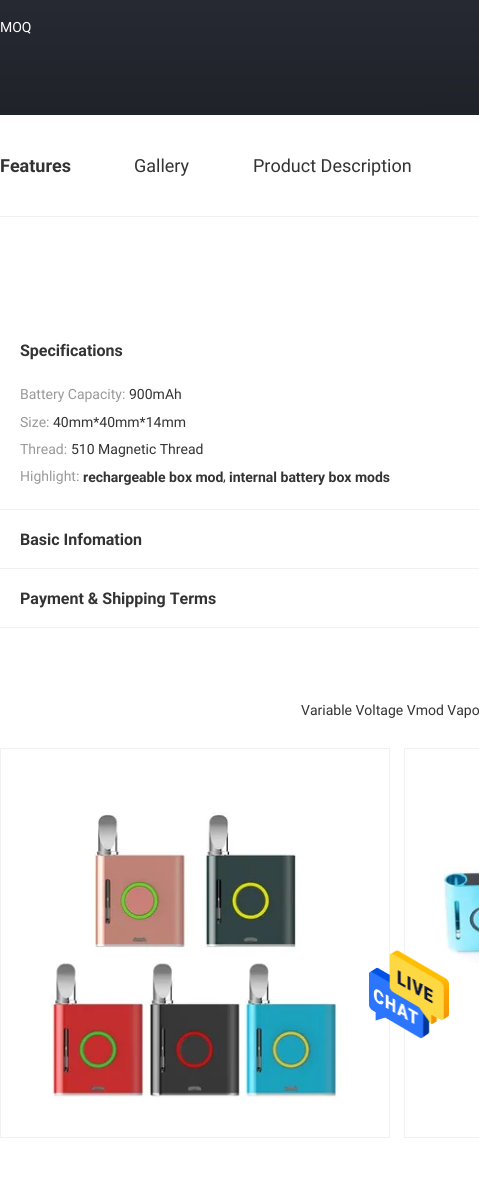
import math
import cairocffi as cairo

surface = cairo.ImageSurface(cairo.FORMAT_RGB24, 479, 1181)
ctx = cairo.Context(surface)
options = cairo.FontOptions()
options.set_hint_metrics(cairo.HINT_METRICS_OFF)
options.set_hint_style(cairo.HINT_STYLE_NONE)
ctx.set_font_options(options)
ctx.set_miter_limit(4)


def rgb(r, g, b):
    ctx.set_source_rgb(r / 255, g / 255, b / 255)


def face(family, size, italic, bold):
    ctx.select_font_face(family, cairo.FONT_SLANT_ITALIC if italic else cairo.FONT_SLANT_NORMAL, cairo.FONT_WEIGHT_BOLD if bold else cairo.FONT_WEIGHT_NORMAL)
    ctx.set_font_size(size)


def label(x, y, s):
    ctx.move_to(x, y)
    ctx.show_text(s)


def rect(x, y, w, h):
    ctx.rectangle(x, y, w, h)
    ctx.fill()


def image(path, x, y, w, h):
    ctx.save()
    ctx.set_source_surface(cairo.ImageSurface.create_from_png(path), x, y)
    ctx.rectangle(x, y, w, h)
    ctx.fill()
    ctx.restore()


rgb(255, 255, 255)
ctx.paint()
gradient = cairo.LinearGradient(239, -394, 240, 115)
gradient.add_color_stop_rgba(0, 0.161, 0.165, 0.18, 1)
gradient.add_color_stop_rgba(0.5, 0.145, 0.157, 0.184, 1)
gradient.add_color_stop_rgba(0.57, 0.176, 0.188, 0.227, 1)
gradient.add_color_stop_rgba(1, 0.122, 0.133, 0.161, 1)
ctx.set_source(gradient)
rect(0, 0, 479, 115)
face('Roboto', 14, 0, 0)
rgb(255, 255, 255)
label(0, 32, 'MOQ')
rgb(240, 241, 242)
rect(0, 216, 479, 1)
face('Roboto', 18, 0, 1)
rgb(51, 51, 51)
label(0, 172, 'Features')
face('Roboto', 18, 0, 0)
label(134, 172, 'Gallery')
label(253, 172, 'Product Description')
face('Roboto', 16, 0, 1)
label(20, 356, 'Specifications')
face('Roboto', 14, 0, 0)
rgb(153, 153, 153)
label(20, 399, 'Battery Capacity:')
rgb(51, 51, 51)
label(129, 399, '900mAh')
rgb(153, 153, 153)
label(20, 427, 'Size:')
rgb(51, 51, 51)
label(53, 427, '40mm*40mm*14mm')
rgb(153, 153, 153)
label(20, 454, 'Thread:')
rgb(51, 51, 51)
label(71, 454, '510 Magnetic Thread')
rgb(153, 153, 153)
label(20, 481, 'Highlight:')
face('Roboto', 14, 0, 1)
rgb(51, 51, 51)
label(83, 482, 'rechargeable box mod')
face('Roboto', 14, 0, 0)
label(223, 481, ',')
face('Roboto', 14, 0, 1)
label(229, 482, 'internal battery box mods')
rgb(240, 241, 242)
rect(0, 509, 479, 1)
face('Roboto', 16, 0, 1)
rgb(51, 51, 51)
label(20, 545, 'Basic Infomation')
rgb(240, 241, 242)
rect(0, 568, 479, 1)
rgb(51, 51, 51)
label(20, 604, 'Payment & Shipping Terms')
rgb(240, 241, 242)
rect(0, 627, 479, 1)
face('Roboto', 14, 0, 0)
rgb(51, 51, 51)
label(301, 715, 'Variable Voltage Vmod Vapo')
ctx.rectangle(0.5, 748.5, 389, 389)
rgb(240, 241, 242)
ctx.set_line_width(1)
ctx.stroke()
image('image0.png', 50, 812, 291, 288)
ctx.rectangle(404.5, 748.5, 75, 389)
ctx.stroke()
image('image1.png', 443, 867, 36, 96)
image('image2.png', 369, 950, 80, 89)
surface.write_to_png('render.png')
